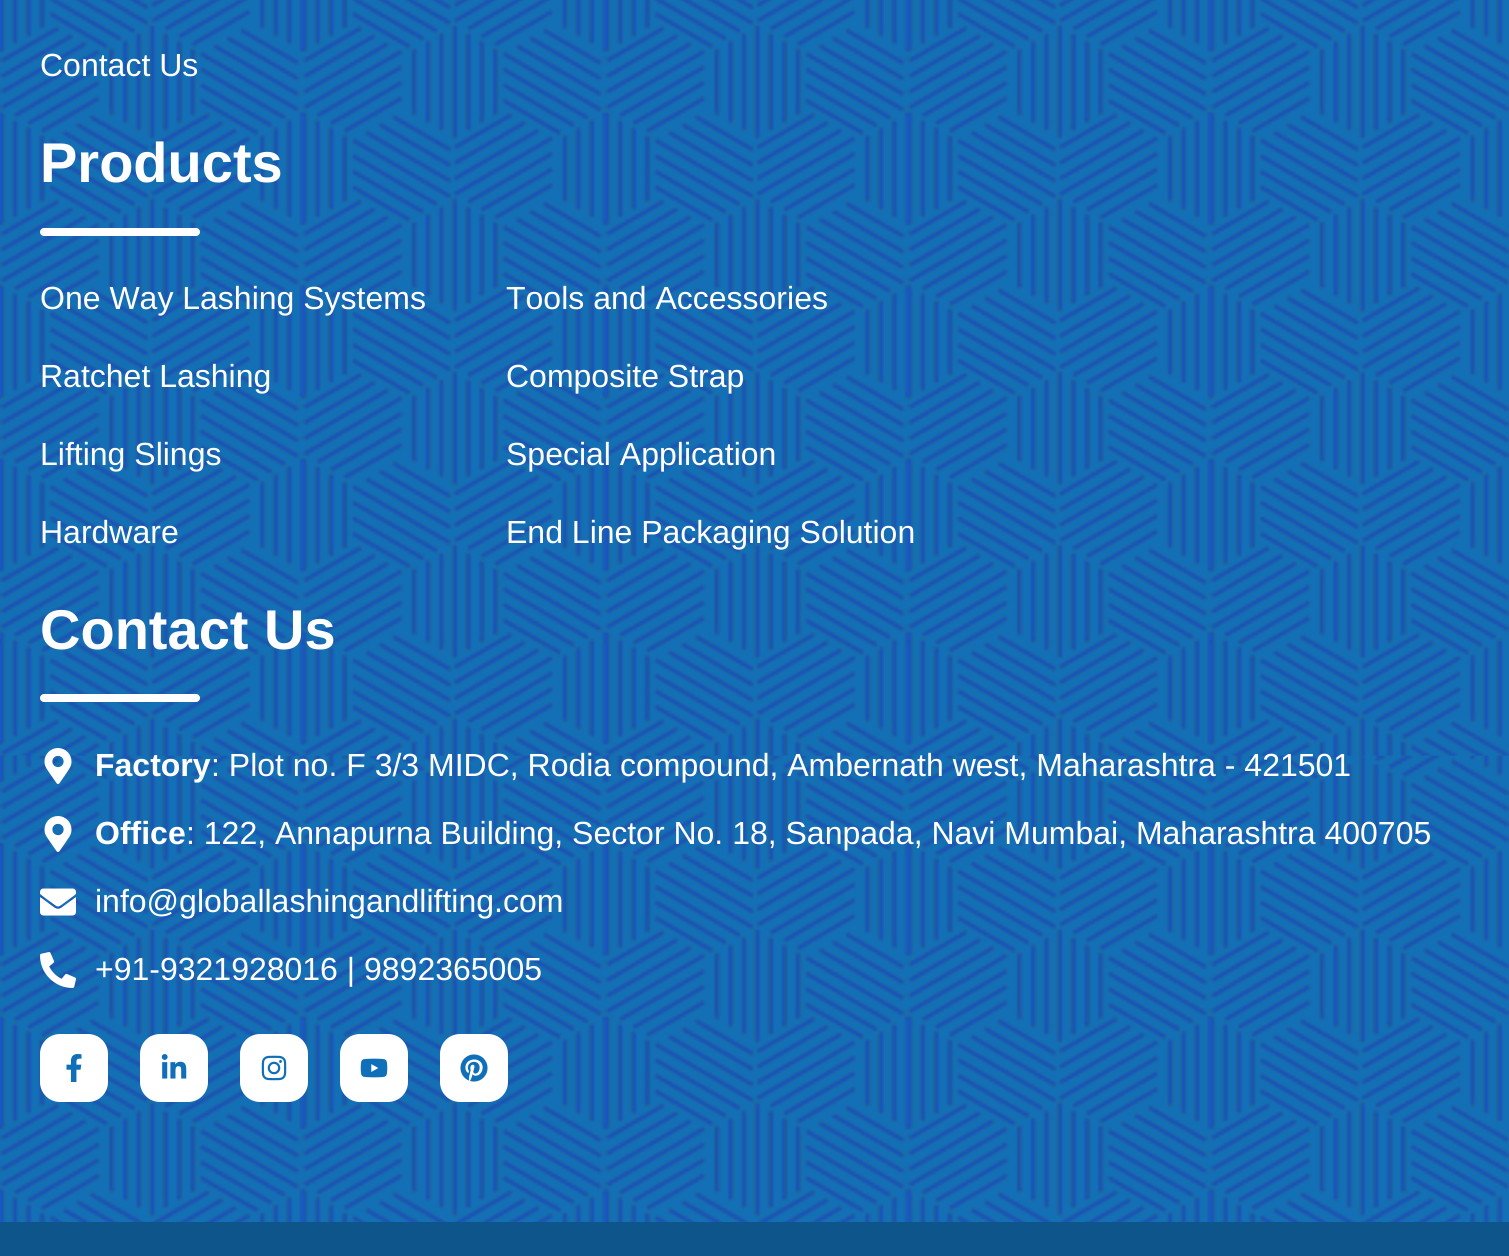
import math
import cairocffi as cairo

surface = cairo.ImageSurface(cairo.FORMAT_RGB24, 1509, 1256)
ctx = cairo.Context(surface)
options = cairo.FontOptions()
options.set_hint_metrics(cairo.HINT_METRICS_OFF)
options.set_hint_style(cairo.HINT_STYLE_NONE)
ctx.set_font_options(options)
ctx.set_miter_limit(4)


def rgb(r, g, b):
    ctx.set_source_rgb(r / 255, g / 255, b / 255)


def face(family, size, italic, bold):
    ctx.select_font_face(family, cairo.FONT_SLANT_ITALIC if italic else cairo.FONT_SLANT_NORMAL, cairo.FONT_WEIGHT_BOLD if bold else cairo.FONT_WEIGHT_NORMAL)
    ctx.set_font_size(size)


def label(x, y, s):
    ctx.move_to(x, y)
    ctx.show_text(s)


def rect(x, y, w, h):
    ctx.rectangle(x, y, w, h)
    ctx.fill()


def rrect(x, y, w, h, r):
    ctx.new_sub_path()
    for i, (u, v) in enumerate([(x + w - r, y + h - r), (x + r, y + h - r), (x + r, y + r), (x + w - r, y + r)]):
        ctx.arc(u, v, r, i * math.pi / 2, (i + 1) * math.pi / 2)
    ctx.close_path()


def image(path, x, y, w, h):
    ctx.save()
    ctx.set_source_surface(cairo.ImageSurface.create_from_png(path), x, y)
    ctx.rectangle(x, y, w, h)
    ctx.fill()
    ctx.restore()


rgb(19, 112, 182)
ctx.paint()
image('image0.png', 0, 0, 1509, 1222)
face('Liberation Sans', 32, 0, 0)
rgb(255, 255, 255)
label(40, 76, 'Contact Us')
face('Liberation Sans', 56, 0, 1)
label(40, 182, 'Products')
rrect(40, 228, 160, 8, 4)
ctx.fill()
face('Liberation Sans', 32, 0, 0)
label(40, 309, 'One Way Lashing Systems')
label(40, 387, 'Ratchet Lashing')
label(40, 465, 'Lifting Slings')
label(40, 543, 'Hardware')
label(506, 309, 'Tools and Accessories')
label(506, 387, 'Composite Strap')
label(506, 465, 'Special Application')
label(506, 543, 'End Line Packaging Solution')
face('Liberation Sans', 56, 0, 1)
label(40, 649, 'Contact Us')
rrect(40, 694, 160, 8, 4)
ctx.fill()
image('image1.png', 44, 748, 28, 36)
face('Liberation Sans', 32, 0, 1)
label(95, 776, 'Factory')
face('Liberation Sans', 32, 0, 0)
label(211, 776, ': Plot no. F 3/3 MIDC, Rodia compound, Ambernath west, Maharashtra - 421501')
image('image2.png', 44, 816, 28, 36)
face('Liberation Sans', 32, 0, 1)
label(95, 844, 'Office')
face('Liberation Sans', 32, 0, 0)
label(186, 844, ': 122, Annapurna Building, Sector No. 18, Sanpada, Navi Mumbai, Maharashtra 400705')
image('image3.png', 40, 888, 36, 28)
label(95, 912, 'info@globallashingandlifting.com')
image('image4.png', 40, 952, 36, 36)
label(95, 980, '+91-9321928016 | 9892365005')
rrect(40, 1034, 68, 68, 20)
ctx.fill()
image('image5.png', 66, 1054, 16, 28)
rrect(140, 1034, 68, 68, 20)
ctx.fill()
image('image6.png', 161, 1054, 26, 25)
rrect(240, 1034, 68, 68, 20)
ctx.fill()
image('image7.png', 261, 1055, 26, 26)
rrect(340, 1034, 68, 68, 20)
ctx.fill()
image('image8.png', 360, 1058, 28, 20)
rrect(440, 1034, 68, 68, 20)
ctx.fill()
image('image9.png', 460, 1054, 28, 28)
rgb(14, 85, 139)
rect(0, 1222, 1509, 34)
surface.write_to_png('render.png')
